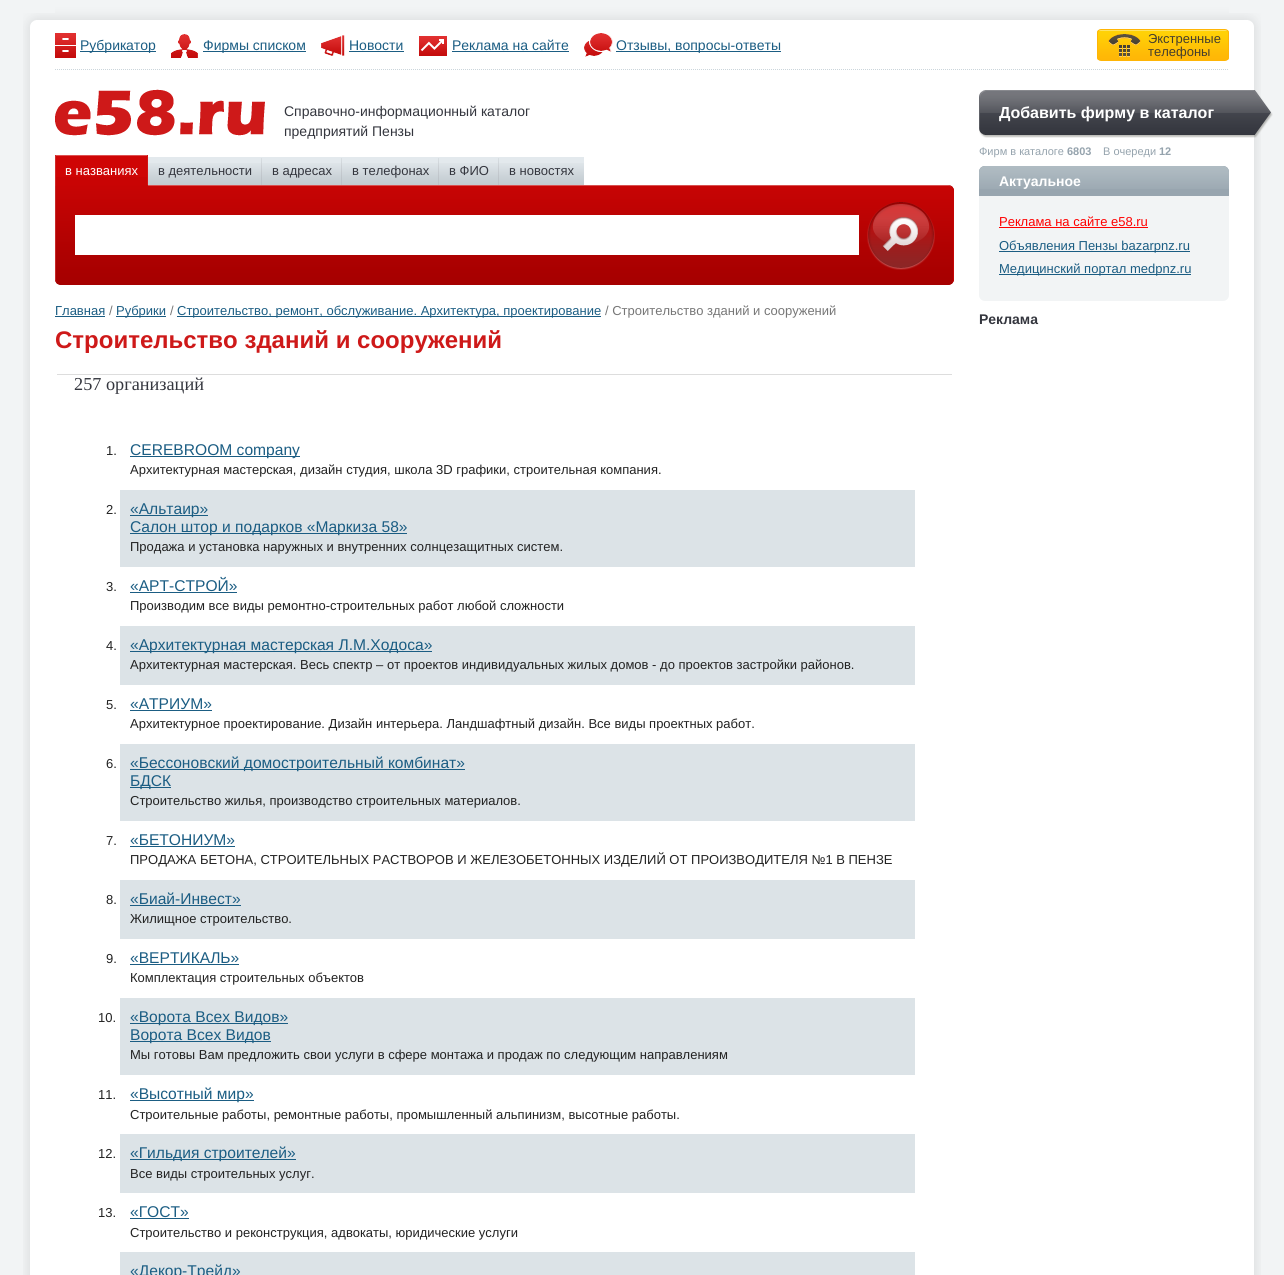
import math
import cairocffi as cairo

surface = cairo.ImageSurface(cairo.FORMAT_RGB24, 1284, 1275)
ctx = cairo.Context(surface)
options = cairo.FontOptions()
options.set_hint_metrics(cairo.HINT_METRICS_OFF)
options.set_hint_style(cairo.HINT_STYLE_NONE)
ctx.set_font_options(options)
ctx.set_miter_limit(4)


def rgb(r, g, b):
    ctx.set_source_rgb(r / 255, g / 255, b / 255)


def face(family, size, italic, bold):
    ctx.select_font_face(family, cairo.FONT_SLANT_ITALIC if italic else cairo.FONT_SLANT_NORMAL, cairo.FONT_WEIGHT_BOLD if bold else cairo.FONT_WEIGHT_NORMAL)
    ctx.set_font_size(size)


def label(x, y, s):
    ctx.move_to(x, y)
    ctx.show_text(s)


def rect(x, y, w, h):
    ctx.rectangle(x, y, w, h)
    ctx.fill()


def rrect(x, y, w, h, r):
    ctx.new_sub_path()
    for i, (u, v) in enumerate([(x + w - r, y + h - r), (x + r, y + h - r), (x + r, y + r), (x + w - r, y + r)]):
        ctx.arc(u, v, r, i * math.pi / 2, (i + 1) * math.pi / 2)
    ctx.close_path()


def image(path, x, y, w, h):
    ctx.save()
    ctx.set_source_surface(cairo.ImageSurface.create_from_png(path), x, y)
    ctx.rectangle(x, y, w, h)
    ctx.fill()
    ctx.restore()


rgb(255, 255, 255)
ctx.paint()
rgb(242, 244, 245)
rect(0, 0, 23, 1275)
image('image0.png', 23, 30, 7, 1245)
image('image1.png', 55, 0, 1174, 20)
ctx.new_path()
ctx.move_to(55, 69.5)
ctx.line_to(1229, 69.5)
rgb(203, 213, 219)
ctx.set_line_width(1)
ctx.set_dash([1, 1])
ctx.stroke()
rgb(242, 244, 245)
rect(23, 0, 32, 30)
image('image2.png', 23, 13, 32, 17)
rect(1229, 0, 32, 30)
image('image3.png', 1229, 13, 32, 17)
image('image4.png', 55, 33, 21, 25)
rgb(27, 93, 131)
rect(80, 51, 76, 1)
face('Liberation Sans', 14, 0, 0)
label(80, 50, 'Рубрикатор')
image('image5.png', 171, 34, 27, 24)
rect(203, 51, 103, 1)
label(203, 50, 'Фирмы списком')
image('image6.png', 321, 35, 24, 21)
label(349, 50, 'Новости')
rect(349, 51, 55, 1)
image('image7.png', 419, 36, 28, 20)
label(452, 50, 'Реклама на сайте')
rect(452, 51, 117, 1)
image('image8.png', 584, 33, 29, 24)
rect(616, 51, 165, 1)
label(616, 50, 'Отзывы, вопросы-ответы')
image('image9.png', 1097, 30, 132, 30)
rrect(1097.5, 29.5, 131, 31, 3.5)
rgb(255, 181, 6)
ctx.set_dash([])
ctx.stroke()
image('image10.png', 1108, 34, 33, 23)
face('Liberation Sans', 13, 0, 0)
rgb(69, 62, 45)
label(1148, 43, 'Экстренные')
label(1148, 56, 'телефоны')
image('image11.png', 55, 89, 210, 47)
face('Liberation Sans', 14, 0, 0)
rgb(52, 54, 62)
label(284, 116, 'Справочно-информационный каталог')
label(284, 136, 'предприятий Пензы')
image('image12.png', 979, 90, 274, 48)
rgb(242, 244, 245)
rect(1261, 0, 23, 1275)
image('image14.png', 1254, 30, 7, 1245)
image('image13.png', 1253, 90, 20, 48)
face('Liberation Sans', 16, 0, 1)
rgb(255, 255, 255)
label(999, 118, 'Добавить фирму в каталог')
face('Liberation Sans', 11, 0, 0)
rgb(149, 163, 173)
label(979, 155, 'Фирм в каталоге')
face('Liberation Sans', 11, 0, 1)
label(1067, 155, '6803')
face('Liberation Sans', 11, 0, 0)
label(1103, 155, 'В очереди')
face('Liberation Sans', 11, 0, 1)
label(1159, 155, '12')
rgb(207, 5, 5)
rect(56, 156, 91, 21)
rgb(201, 4, 4)
rect(55, 177, 93, 8)
rgb(222, 81, 81)
rect(55, 155, 93, 1)
rgb(166, 0, 0)
ctx.new_path()
ctx.move_to(55, 185)
ctx.line_to(948, 185)
ctx.curve_to(951.5, 185, 954, 187.5, 954, 191)
ctx.line_to(954, 279)
ctx.curve_to(954, 282.5, 951.5, 285, 948, 285)
ctx.line_to(61, 285)
ctx.curve_to(57.5, 285, 55, 282.5, 55, 279)
ctx.close_path()
ctx.fill()
image('image21.png', 55, 186, 899, 98)
rgb(216, 81, 81)
ctx.new_path()
ctx.move_to(55, 185)
ctx.line_to(56, 186)
ctx.line_to(948, 186)
ctx.curve_to(950, 186, 951, 186, 952, 187)
ctx.curve_to(951, 186, 950, 185, 948, 185)
ctx.close_path()
ctx.fill()
rgb(209, 18, 18)
rect(147, 155, 1, 31)
rgb(197, 41, 41)
ctx.new_path()
ctx.move_to(56, 186)
ctx.line_to(55, 185)
ctx.line_to(55, 280)
ctx.line_to(57, 283)
ctx.curve_to(56, 282, 56, 280, 56, 279)
ctx.close_path()
ctx.fill()
rgb(200, 4, 4)
rect(55, 185, 93, 1)
rgb(207, 42, 42)
rect(55, 155, 1, 31)
face('Liberation Sans', 13, 0, 0)
rgb(255, 255, 255)
label(65, 175, 'в названиях')
rgb(227, 233, 237)
rect(148, 157, 436, 6)
image('image15.png', 148, 163, 113, 22)
image('image16.png', 261, 158, 1, 27)
rgb(52, 54, 62)
label(158, 175, 'в деятельности')
image('image17.png', 262, 163, 79, 22)
image('image16.png', 341, 158, 1, 27)
label(272, 175, 'в адресах')
image('image18.png', 342, 163, 96, 22)
image('image16.png', 438, 158, 1, 27)
label(352, 175, 'в телефонах')
image('image19.png', 439, 163, 59, 22)
image('image16.png', 498, 158, 1, 27)
label(449, 175, 'в ФИО')
image('image20.png', 499, 163, 85, 22)
label(509, 175, 'в новостях')
rgb(197, 4, 4)
ctx.new_path()
ctx.move_to(954, 279)
ctx.line_to(954, 190)
ctx.line_to(952, 187)
ctx.line_to(953, 190)
ctx.line_to(953, 280)
ctx.line_to(952, 283)
ctx.curve_to(953, 282, 954, 280, 954, 279)
ctx.close_path()
ctx.fill()
rgb(166, 0, 0)
ctx.new_path()
ctx.move_to(61, 285)
ctx.line_to(948, 285)
ctx.curve_to(950, 285, 951, 284, 952, 283)
ctx.curve_to(951, 284, 950, 284, 948, 284)
ctx.line_to(61, 284)
ctx.curve_to(60, 284, 58, 284, 57, 283)
ctx.curve_to(58, 284, 60, 285, 61, 285)
ctx.close_path()
ctx.fill()
rgb(255, 255, 255)
rect(75, 215, 784, 40)
image('image22.png', 867, 202, 68, 68)
rgb(27, 93, 131)
label(55, 315, 'Главная')
rect(55, 316, 50, 1)
rgb(119, 119, 119)
label(109, 315, '/')
rgb(27, 93, 131)
rect(116, 316, 50, 1)
label(116, 315, 'Рубрики')
rgb(119, 119, 119)
label(170, 315, '/')
rgb(27, 93, 131)
rect(177, 316, 424, 1)
label(177, 315, 'Строительство, ремонт, обслуживание. Архитектура, проектирование')
rgb(119, 119, 119)
label(605, 315, '/ Строительство зданий и сооружений')
face('Liberation Sans', 24, 0, 1)
rgb(206, 25, 25)
label(55, 348, 'Строительство зданий и сооружений')
rgb(221, 221, 221)
rect(57, 374, 895, 1)
face('Liberation Serif', 18.25, 0, 0)
rgb(52, 54, 62)
label(74, 390, '257 организаций')
face('Liberation Sans', 13, 0, 0)
rgb(34, 34, 34)
label(106, 455, '1.')
rgb(27, 93, 131)
rect(130, 456, 170, 1)
face('Liberation Sans', 15.6, 0, 0)
label(130, 455, 'CEREBROOM company')
face('Liberation Sans', 13, 0, 0)
rgb(34, 34, 34)
label(130, 474, 'Архитектурная мастерская, дизайн студия, школа 3D графики, строительная компания.')
rgb(220, 227, 231)
rect(120, 490, 795, 77)
rgb(34, 34, 34)
label(106, 514, '2.')
rgb(27, 93, 131)
rect(130, 515, 78, 1)
face('Liberation Sans', 15.6, 0, 0)
label(130, 514, '«Альтаир»')
rect(130, 533, 277, 1)
label(130, 532, 'Салон штор и подарков «Маркиза 58»')
face('Liberation Sans', 13, 0, 0)
rgb(34, 34, 34)
label(130, 551, 'Продажа и установка наружных и внутренних солнцезащитных систем.')
label(106, 591, '3.')
face('Liberation Sans', 15.6, 0, 0)
rgb(27, 93, 131)
label(130, 591, '«АРТ-СТРОЙ»')
rect(130, 592, 107, 1)
face('Liberation Sans', 13, 0, 0)
rgb(34, 34, 34)
label(130, 610, 'Производим все виды ремонтно-строительных работ любой сложности')
rgb(220, 227, 231)
rect(120, 626, 795, 59)
rgb(34, 34, 34)
label(106, 650, '4.')
rgb(27, 93, 131)
rect(130, 651, 302, 1)
face('Liberation Sans', 15.6, 0, 0)
label(130, 650, '«Архитектурная мастерская Л.М.Ходоса»')
face('Liberation Sans', 13, 0, 0)
rgb(34, 34, 34)
label(130, 669, 'Архитектурная мастерская. Весь спектр – от проектов индивидуальных жилых домов - до проектов застройки районов.')
label(106, 709, '5.')
face('Liberation Sans', 15.6, 0, 0)
rgb(27, 93, 131)
label(130, 709, '«АТРИУМ»')
rect(130, 710, 82, 1)
face('Liberation Sans', 13, 0, 0)
rgb(34, 34, 34)
label(130, 728, 'Архитектурное проектирование. Дизайн интерьера. Ландшафтный дизайн. Все виды проектных работ.')
rgb(220, 227, 231)
rect(120, 744, 795, 77)
rgb(34, 34, 34)
label(106, 768, '6.')
rgb(27, 93, 131)
rect(130, 769, 335, 1)
face('Liberation Sans', 15.6, 0, 0)
label(130, 768, '«Бессоновский домостроительный комбинат»')
rect(130, 787, 41, 1)
label(130, 786, 'БДСК')
face('Liberation Sans', 13, 0, 0)
rgb(34, 34, 34)
label(130, 805, 'Строительство жилья, производство строительных материалов.')
label(106, 845, '7.')
face('Liberation Sans', 15.6, 0, 0)
rgb(27, 93, 131)
label(130, 845, '«БЕТОНИУМ»')
rect(130, 846, 105, 1)
face('Liberation Sans', 13, 0, 0)
rgb(34, 34, 34)
label(130, 864, 'ПРОДАЖА БЕТОНА, СТРОИТЕЛЬНЫХ РАСТВОРОВ И ЖЕЛЕЗОБЕТОННЫХ ИЗДЕЛИЙ ОТ ПРОИЗВОДИТЕЛЯ №1 В ПЕНЗЕ')
rgb(220, 227, 231)
rect(120, 880, 795, 59)
rgb(34, 34, 34)
label(106, 904, '8.')
face('Liberation Sans', 15.6, 0, 0)
rgb(27, 93, 131)
label(130, 904, '«Биай-Инвест»')
rect(130, 905, 111, 1)
face('Liberation Sans', 13, 0, 0)
rgb(34, 34, 34)
label(130, 923, 'Жилищное строительство.')
label(106, 963, '9.')
face('Liberation Sans', 15.6, 0, 0)
rgb(27, 93, 131)
label(130, 963, '«ВЕРТИКАЛЬ»')
rect(130, 964, 109, 1)
face('Liberation Sans', 13, 0, 0)
rgb(34, 34, 34)
label(130, 982, 'Комплектация строительных объектов')
rgb(220, 227, 231)
rect(120, 998, 795, 77)
rgb(34, 34, 34)
label(98, 1022, '10.')
rgb(27, 93, 131)
rect(130, 1023, 158, 1)
face('Liberation Sans', 15.6, 0, 0)
label(130, 1022, '«Ворота Всех Видов»')
rect(130, 1041, 141, 1)
label(130, 1040, 'Ворота Всех Видов')
face('Liberation Sans', 13, 0, 0)
rgb(34, 34, 34)
label(130, 1059, 'Мы готовы Вам предложить свои услуги в сфере монтажа и продаж по следующим направлениям')
label(98, 1099, '11.')
rgb(27, 93, 131)
rect(130, 1100, 124, 1)
face('Liberation Sans', 15.6, 0, 0)
label(130, 1099, '«Высотный мир»')
face('Liberation Sans', 13, 0, 0)
rgb(34, 34, 34)
label(130, 1119, 'Строительные работы, ремонтные работы, промышленный альпинизм, высотные работы.')
rgb(220, 227, 231)
rect(120, 1134, 795, 59)
rgb(34, 34, 34)
label(98, 1158, '12.')
rgb(27, 93, 131)
rect(130, 1159, 166, 1)
face('Liberation Sans', 15.6, 0, 0)
label(130, 1158, '«Гильдия строителей»')
face('Liberation Sans', 13, 0, 0)
rgb(34, 34, 34)
label(130, 1178, 'Все виды строительных услуг.')
label(98, 1217, '13.')
face('Liberation Sans', 15.6, 0, 0)
rgb(27, 93, 131)
label(130, 1217, '«ГОСТ»')
rect(130, 1218, 59, 1)
face('Liberation Sans', 13, 0, 0)
rgb(34, 34, 34)
label(130, 1237, 'Строительство и реконструкция, адвокаты, юридические услуги')
rgb(220, 227, 231)
rect(120, 1252, 795, 23)
face('Liberation Sans', 15.6, 0, 0)
rgb(27, 93, 131)
label(130, 1276, '«Декор-Трейд»')
rgb(242, 244, 245)
rrect(979, 166, 250, 135, 6)
ctx.fill()
rgb(152, 165, 175)
ctx.new_path()
ctx.move_to(985, 166)
ctx.line_to(1223, 166)
ctx.curve_to(1226.5, 166, 1229, 168.5, 1229, 172)
ctx.line_to(1229, 196)
ctx.line_to(979, 196)
ctx.line_to(979, 172)
ctx.curve_to(979, 168.5, 981.5, 166, 985, 166)
ctx.close_path()
ctx.fill()
image('image23.png', 979, 166, 250, 23)
face('Liberation Sans', 14, 0, 1)
rgb(255, 255, 255)
label(999, 186, 'Актуальное')
face('Liberation Sans', 13, 0, 0)
rgb(255, 0, 0)
label(999, 226, 'Реклама на сайте e58.ru')
rect(999, 227, 149, 1)
rgb(27, 93, 131)
rect(999, 251, 191, 1)
label(999, 250, 'Объявления Пензы bazarpnz.ru')
rect(999, 274, 192, 1)
label(999, 273, 'Медицинский портал medpnz.ru')
face('Liberation Sans', 14, 0, 1)
rgb(52, 54, 62)
label(979, 324, 'Реклама')
surface.write_to_png('render.png')
